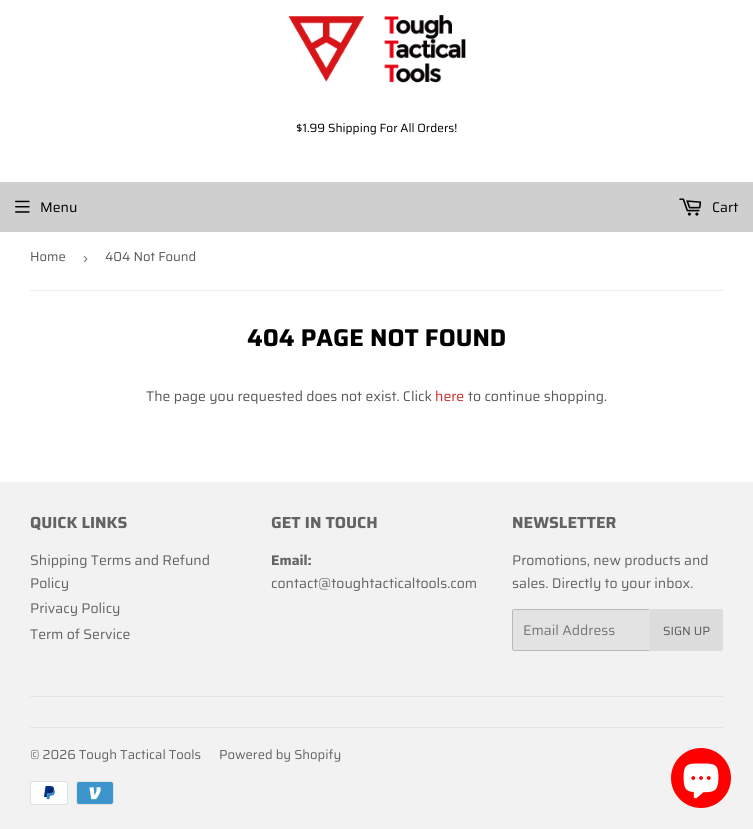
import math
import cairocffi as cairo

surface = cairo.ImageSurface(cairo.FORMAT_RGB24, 753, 829)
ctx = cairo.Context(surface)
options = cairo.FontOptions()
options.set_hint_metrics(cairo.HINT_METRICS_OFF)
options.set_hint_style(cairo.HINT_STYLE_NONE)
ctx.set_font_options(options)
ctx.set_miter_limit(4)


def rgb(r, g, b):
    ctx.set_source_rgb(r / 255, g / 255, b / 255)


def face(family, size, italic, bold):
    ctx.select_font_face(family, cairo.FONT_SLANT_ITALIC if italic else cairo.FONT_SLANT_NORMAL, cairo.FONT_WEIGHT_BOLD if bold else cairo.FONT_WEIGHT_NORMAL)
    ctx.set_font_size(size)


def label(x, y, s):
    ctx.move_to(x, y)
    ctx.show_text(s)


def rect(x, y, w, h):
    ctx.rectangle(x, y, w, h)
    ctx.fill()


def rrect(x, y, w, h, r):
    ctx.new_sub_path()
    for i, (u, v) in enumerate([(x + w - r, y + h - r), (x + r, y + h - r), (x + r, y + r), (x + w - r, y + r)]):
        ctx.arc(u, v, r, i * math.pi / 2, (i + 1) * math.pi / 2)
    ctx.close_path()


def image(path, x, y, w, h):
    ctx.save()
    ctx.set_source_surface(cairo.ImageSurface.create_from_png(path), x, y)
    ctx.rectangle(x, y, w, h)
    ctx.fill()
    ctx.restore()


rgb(255, 255, 255)
ctx.paint()
image('image0.png', 288, 15, 178, 68)
face('Saira', 11.9, 0, 0)
rgb(0, 0, 0)
label(296, 132, '$1.99 Shipping For All Orders!')
rgb(207, 207, 207)
rect(0, 182, 753, 50)
image('image1.png', 15, 200, 15, 13)
face('Saira', 14, 0, 0)
rgb(0, 0, 0)
label(40, 212, 'Menu')
image('image2.png', 679, 198, 23, 18)
label(712, 212, 'Cart')
rgb(236, 236, 236)
rect(30, 290, 693, 1)
face('Saira', 13, 0, 0)
rgb(88, 88, 88)
label(30, 261, 'Home')
face('Liberation Sans', 15, 0, 0)
rgb(118, 118, 118)
label(83, 263, '›')
face('Saira', 13, 0, 0)
rgb(88, 88, 88)
label(105, 261, '404 Not Found')
face('Saira', 24.25, 0, 1)
rgb(0, 0, 0)
label(247, 346, '404 PAGE NOT FOUND')
face('Saira', 14, 0, 0)
rgb(88, 88, 88)
label(146, 401, 'The page you requested does not exist. Click')
rgb(201, 41, 41)
label(435, 401, 'here')
rgb(88, 88, 88)
label(468, 401, 'to continue shopping.')
rgb(242, 242, 242)
rect(0, 482, 753, 347)
face('Saira', 16, 0, 1)
rgb(99, 99, 99)
label(30, 528, 'QUICK LINKS')
face('Saira', 14, 0, 0)
label(30, 565, 'Shipping Terms and Refund')
label(30, 588, 'Policy')
label(30, 613, 'Privacy Policy')
label(30, 639, 'Term of Service')
face('Saira', 16, 0, 1)
label(271, 528, 'GET IN TOUCH')
face('Saira', 14, 0, 1)
label(271, 565, 'Email:')
face('Saira', 14, 0, 0)
label(271, 588, 'contact@toughtacticaltools.com')
face('Saira', 16, 0, 1)
label(512, 528, 'NEWSLETTER')
face('Saira', 14, 0, 0)
label(512, 565, 'Promotions, new products and')
label(512, 588, 'sales. Directly to your inbox.')
rgb(227, 227, 227)
rrect(512, 609, 138, 42, 2)
ctx.fill()
rgb(185, 185, 185)
rect(513, 609, 136, 1)
rect(513, 650, 136, 1)
rect(512, 610, 1, 40)
rgb(118, 118, 118)
label(523, 635, 'Email Address')
rgb(220, 220, 220)
ctx.new_path()
ctx.move_to(650, 609)
ctx.line_to(721, 609)
ctx.curve_to(722, 609, 723, 610, 723, 611)
ctx.line_to(723, 649)
ctx.curve_to(723, 650, 722, 651, 721, 651)
ctx.line_to(650, 651)
ctx.close_path()
ctx.fill()
face('Saira', 12, 0, 0)
rgb(88, 88, 88)
label(663, 635, 'SIGN UP')
rgb(229, 229, 229)
rect(30, 696, 693, 1)
rect(30, 727, 693, 1)
face('Saira', 13, 0, 0)
rgb(99, 99, 99)
label(30, 759, '© 2026 Tough Tactical Tools')
label(219, 759, 'Powered by Shopify')
image('image3.png', 30, 781, 38, 24)
image('image4.png', 76, 781, 38, 24)
rgb(255, 0, 0)
ctx.arc(701, 778, 30, 0, 2 * math.pi)
ctx.fill()
image('image5.png', 683, 763, 36, 36)
surface.write_to_png('render.png')
